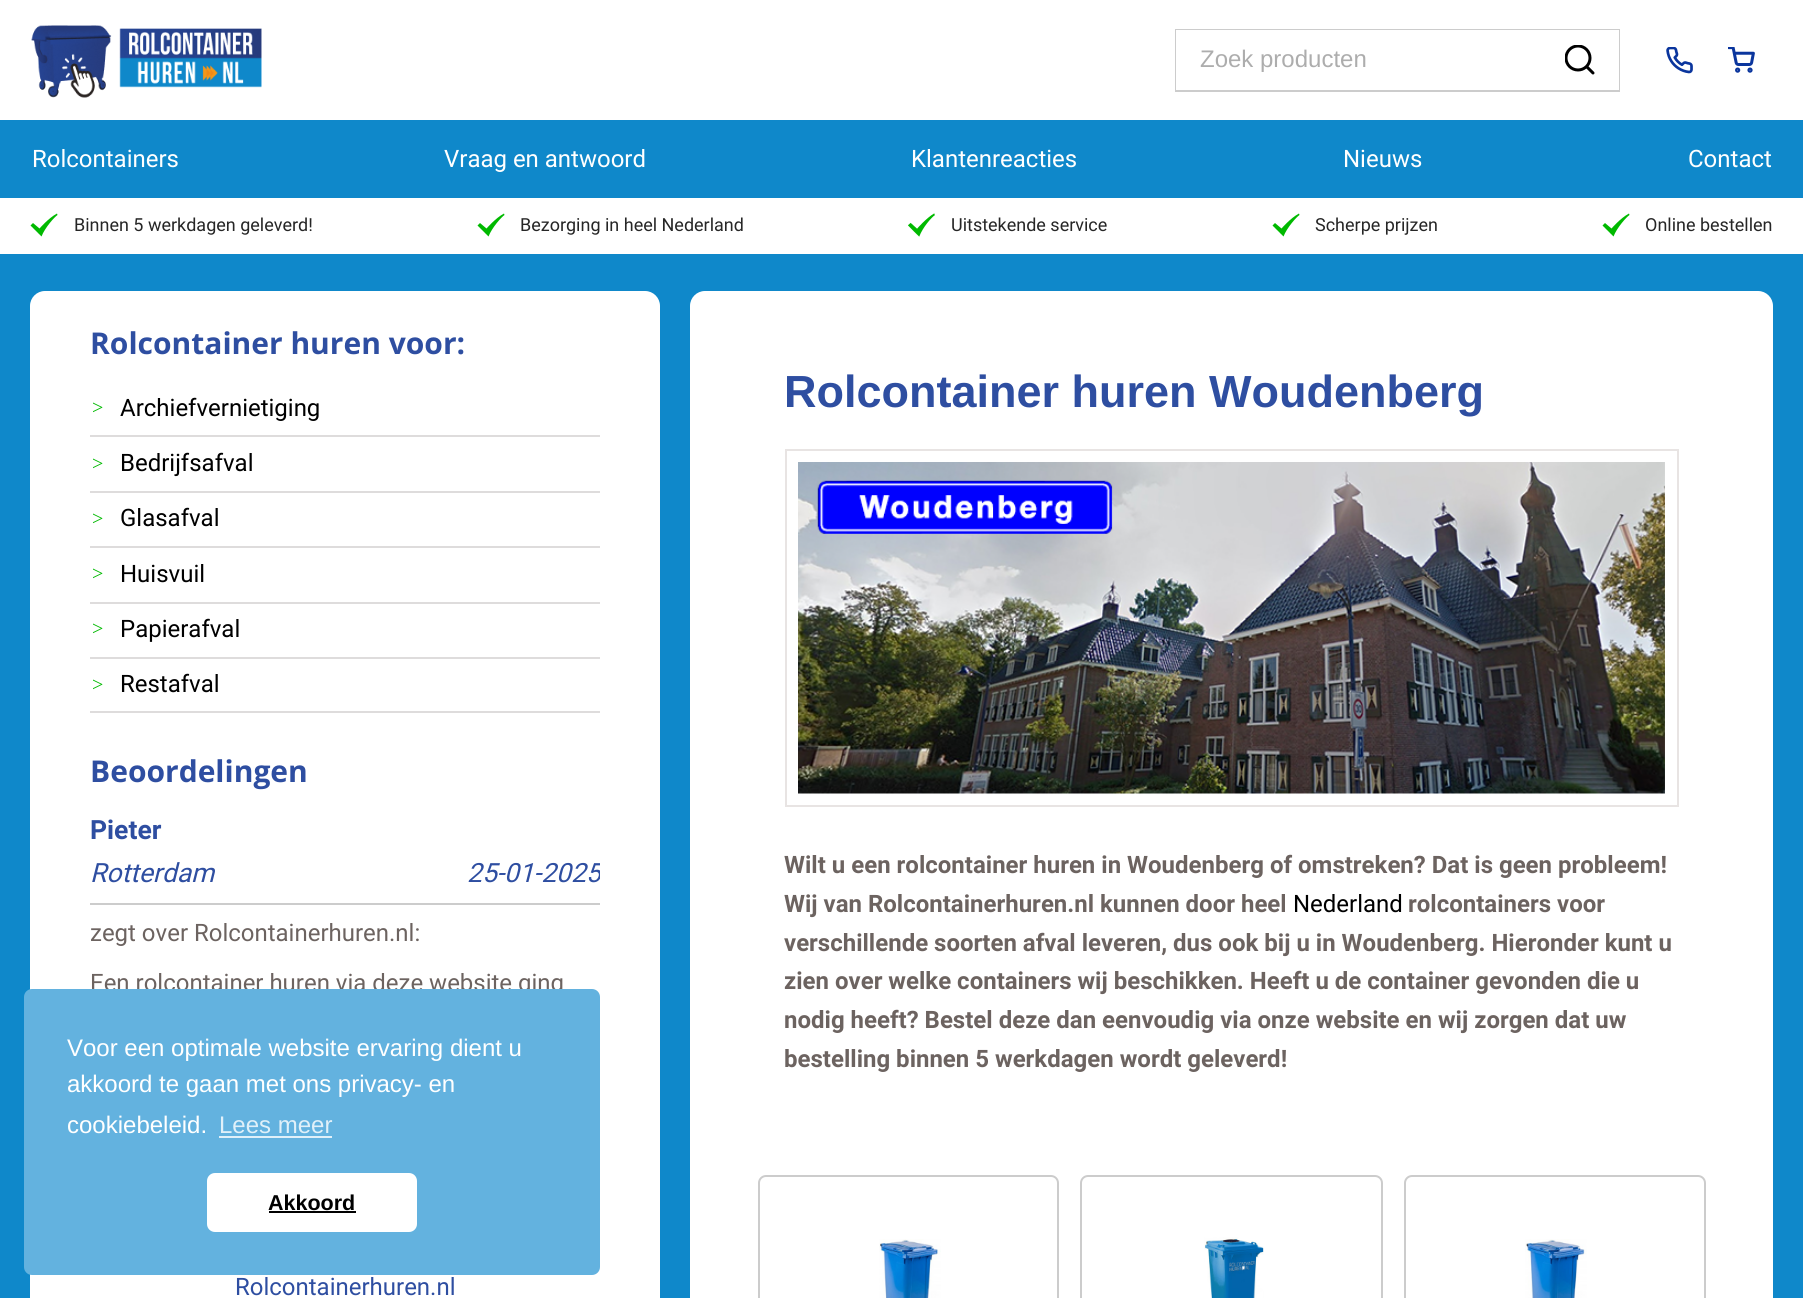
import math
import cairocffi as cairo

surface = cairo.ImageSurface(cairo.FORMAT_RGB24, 1803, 1298)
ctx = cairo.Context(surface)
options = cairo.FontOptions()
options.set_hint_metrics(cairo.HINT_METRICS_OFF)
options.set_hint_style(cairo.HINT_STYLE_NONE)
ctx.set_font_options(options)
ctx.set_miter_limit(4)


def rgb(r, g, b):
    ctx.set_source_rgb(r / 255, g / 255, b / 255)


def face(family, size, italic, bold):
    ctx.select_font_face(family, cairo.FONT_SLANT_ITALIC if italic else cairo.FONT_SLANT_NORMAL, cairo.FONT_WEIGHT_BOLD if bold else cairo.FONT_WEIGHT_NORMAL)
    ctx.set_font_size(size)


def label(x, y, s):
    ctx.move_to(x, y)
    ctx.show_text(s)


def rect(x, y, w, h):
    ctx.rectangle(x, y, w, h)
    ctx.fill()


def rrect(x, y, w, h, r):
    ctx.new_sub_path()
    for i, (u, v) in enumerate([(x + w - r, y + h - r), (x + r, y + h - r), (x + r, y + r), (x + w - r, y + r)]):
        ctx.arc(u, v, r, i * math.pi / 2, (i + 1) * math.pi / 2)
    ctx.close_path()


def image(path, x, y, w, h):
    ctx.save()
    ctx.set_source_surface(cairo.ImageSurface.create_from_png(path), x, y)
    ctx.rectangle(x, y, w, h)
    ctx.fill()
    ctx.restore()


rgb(15, 136, 202)
ctx.paint()
rgb(255, 255, 255)
rect(0, 0, 1803, 120)
image('image0.png', 31, 25, 231, 73)
ctx.rectangle(1176, 30, 443, 61)
rgb(204, 204, 204)
ctx.stroke()
rgb(255, 255, 255)
rect(1176, 30, 443, 60)
face('Liberation Sans', 24, 0, 0)
rgb(173, 173, 173)
label(1200, 67, 'Zoek producten')
image('image1.png', 1565, 45, 30, 30)
image('image2.png', 1666, 47, 27, 27)
image('image3.png', 1728, 47, 27, 26)
face('Roboto', 24, 0, 0)
rgb(255, 255, 255)
label(32, 167, 'Rolcontainers')
label(444, 167, 'Vraag en antwoord')
label(911, 167, 'Klantenreacties')
label(1343, 167, 'Nieuws')
label(1688, 167, 'Contact')
rect(0, 198, 1803, 56)
rgb(0, 185, 0)
ctx.set_fill_rule(cairo.FILL_RULE_EVEN_ODD)
ctx.new_path()
ctx.move_to(33, 223)
ctx.line_to(39.5, 228.5)
ctx.curve_to(39.5, 228.5, 48.5, 218, 57, 213.5)
ctx.line_to(57.5, 215)
ctx.curve_to(54.5, 217, 45, 227.5, 41.5, 236.5)
ctx.line_to(30.5, 225.5)
ctx.close_path()
ctx.fill()
face('Roboto', 18, 0, 0)
rgb(38, 38, 38)
label(74, 231, 'Binnen 5 werkdagen geleverd!')
rgb(0, 185, 0)
ctx.new_path()
ctx.move_to(480, 223)
ctx.line_to(486.5, 228.5)
ctx.curve_to(486.5, 228.5, 495.5, 218, 504, 213.5)
ctx.line_to(504.5, 215)
ctx.curve_to(501.5, 217, 492, 227.5, 488.5, 236.5)
ctx.line_to(477.5, 225.5)
ctx.close_path()
ctx.fill()
rgb(38, 38, 38)
label(520, 231, 'Bezorging in heel Nederland')
image('image4.png', 908, 213, 27, 24)
label(951, 231, 'Uitstekende service')
rgb(0, 185, 0)
ctx.new_path()
ctx.move_to(1275, 223)
ctx.line_to(1281.5, 228.5)
ctx.curve_to(1281.5, 228.5, 1290.5, 218, 1299, 213.5)
ctx.line_to(1299.5, 215)
ctx.curve_to(1296.5, 217, 1287, 227.5, 1283.5, 236.5)
ctx.line_to(1272.5, 225.5)
ctx.close_path()
ctx.fill()
rgb(38, 38, 38)
label(1315, 231, 'Scherpe prijzen')
rgb(0, 185, 0)
ctx.new_path()
ctx.move_to(1605, 223)
ctx.line_to(1611.5, 228.5)
ctx.curve_to(1611.5, 228.5, 1620.5, 218, 1629, 213.5)
ctx.line_to(1629.5, 215)
ctx.curve_to(1626.5, 217, 1617, 227.5, 1613.5, 236.5)
ctx.line_to(1602.5, 225.5)
ctx.close_path()
ctx.fill()
rgb(38, 38, 38)
label(1645, 231, 'Online bestellen')
rgb(255, 255, 255)
rrect(30, 291, 630, 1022, 15)
ctx.fill()
face('Open Sans', 30, 0, 1)
rgb(46, 78, 161)
label(90, 354, 'Rolcontainer huren voor:')
rgb(222, 220, 220)
rect(90, 435, 510, 2)
face('Liberation Serif', 20, 0, 0)
rgb(0, 185, 0)
label(92, 414, '>')
face('Roboto', 24, 0, 0)
rgb(0, 0, 0)
label(120, 416, 'Archiefvernietiging')
rgb(222, 220, 220)
rect(90, 491, 510, 2)
face('Liberation Serif', 20, 0, 0)
rgb(0, 185, 0)
label(92, 470, '>')
face('Roboto', 24, 0, 0)
rgb(0, 0, 0)
label(120, 471, 'Bedrijfsafval')
rgb(222, 220, 220)
rect(90, 546, 510, 2)
face('Liberation Serif', 20, 0, 0)
rgb(0, 185, 0)
label(92, 525, '>')
face('Roboto', 24, 0, 0)
rgb(0, 0, 0)
label(120, 526, 'Glasafval')
rgb(222, 220, 220)
rect(90, 602, 510, 2)
face('Liberation Serif', 20, 0, 0)
rgb(0, 185, 0)
label(92, 580, '>')
face('Roboto', 24, 0, 0)
rgb(0, 0, 0)
label(120, 582, 'Huisvuil')
rgb(222, 220, 220)
rect(90, 657, 510, 2)
face('Liberation Serif', 20, 0, 0)
rgb(0, 185, 0)
label(92, 635, '>')
face('Roboto', 24, 0, 0)
rgb(0, 0, 0)
label(120, 637, 'Papierafval')
rgb(222, 220, 220)
rect(90, 711, 510, 2)
face('Liberation Serif', 20, 0, 0)
rgb(0, 185, 0)
label(92, 691, '>')
face('Roboto', 24, 0, 0)
rgb(0, 0, 0)
label(120, 692, 'Restafval')
face('Open Sans', 30, 0, 1)
rgb(46, 78, 161)
label(90, 782, 'Beoordelingen')
face('Roboto', 26.5, 0, 1)
label(90, 839, 'Pieter')
face('Roboto', 26.5, 1, 0)
label(90, 882, 'Rotterdam')
ctx.save()
ctx.set_fill_rule(cairo.FILL_RULE_WINDING)
ctx.rectangle(90, 810, 510, 420)
ctx.clip()
label(467, 882, '25-01-2025')
ctx.restore()
rgb(204, 204, 204)
rect(90, 903, 510, 2)
face('Roboto', 24, 0, 0)
rgb(108, 99, 96)
label(90, 941, 'zegt over Rolcontainerhuren.nl:')
label(90, 991, 'Een rolcontainer huren via deze website ging')
rgb(46, 78, 161)
label(235, 1295, 'Rolcontainerhuren.nl')
rgb(255, 255, 255)
rrect(690, 291, 1083, 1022, 15)
ctx.fill()
face('Liberation Sans', 45, 0, 1)
rgb(46, 78, 161)
label(784, 407, 'Rolcontainer huren Woudenberg')
ctx.rectangle(786, 450, 892, 356)
rgb(232, 228, 227)
ctx.stroke()
image('image5.png', 798, 462, 867, 332)
face('Roboto', 24, 0, 1)
rgb(108, 99, 96)
label(784, 873, 'Wilt u een rolcontainer huren in Woudenberg of omstreken? Dat is geen probleem!')
label(784, 912, 'Wij van Rolcontainerhuren.nl kunnen door heel')
face('Roboto', 24, 0, 0)
rgb(0, 0, 0)
label(1293, 912, 'Nederland')
face('Roboto', 24, 0, 1)
rgb(108, 99, 96)
label(1408, 912, 'rolcontainers voor')
label(784, 951, 'verschillende soorten afval leveren, dus ook bij u in Woudenberg. Hieronder kunt u')
label(784, 989, 'zien over welke containers wij beschikken. Heeft u de container gevonden die u')
label(784, 1028, 'nodig heeft? Bestel deze dan eenvoudig via onze website en wij zorgen dat uw')
label(784, 1067, 'bestelling binnen 5 werkdagen wordt geleverd!')
rrect(759, 1176, 299, 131, 7)
rgb(204, 204, 204)
ctx.stroke()
image('image6.png', 879, 1239, 62, 59)
rrect(1081, 1176, 301, 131, 7)
ctx.stroke()
image('image7.png', 1204, 1237, 60, 61)
rrect(1405, 1176, 300, 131, 7)
ctx.stroke()
image('image8.png', 1525, 1239, 62, 59)
rgb(99, 178, 223)
rrect(24, 989, 576, 286, 8)
ctx.fill()
face('Liberation Sans', 24, 0, 0)
rgb(255, 255, 255)
label(67, 1056, 'Voor een optimale website ervaring dient u')
label(67, 1092, 'akkoord te gaan met ons privacy- en')
label(67, 1133, 'cookiebeleid.')
rgb(224, 240, 249)
label(219, 1133, 'Lees meer')
rect(219, 1136, 113, 2)
rgb(255, 255, 255)
rrect(207, 1173, 210, 59, 8)
ctx.fill()
face('Liberation Sans', 21.5, 0, 1)
rgb(0, 0, 0)
label(268, 1210, 'Akkoord')
rect(269, 1211, 87, 2)
surface.write_to_png('render.png')
